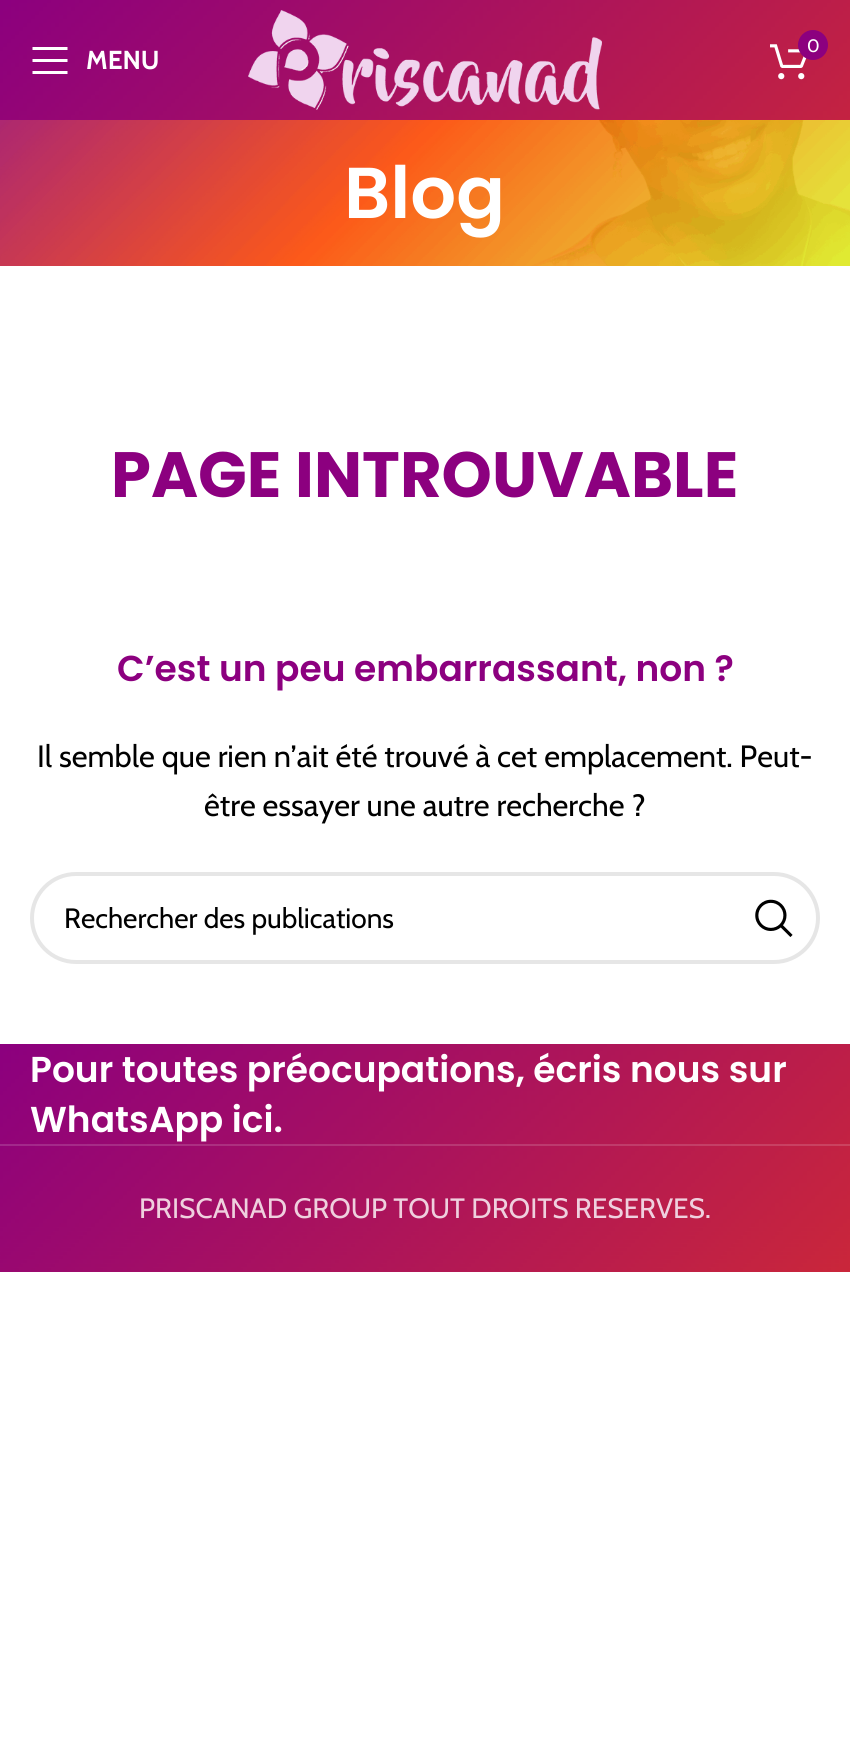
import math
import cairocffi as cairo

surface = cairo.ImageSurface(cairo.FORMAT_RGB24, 850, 1739)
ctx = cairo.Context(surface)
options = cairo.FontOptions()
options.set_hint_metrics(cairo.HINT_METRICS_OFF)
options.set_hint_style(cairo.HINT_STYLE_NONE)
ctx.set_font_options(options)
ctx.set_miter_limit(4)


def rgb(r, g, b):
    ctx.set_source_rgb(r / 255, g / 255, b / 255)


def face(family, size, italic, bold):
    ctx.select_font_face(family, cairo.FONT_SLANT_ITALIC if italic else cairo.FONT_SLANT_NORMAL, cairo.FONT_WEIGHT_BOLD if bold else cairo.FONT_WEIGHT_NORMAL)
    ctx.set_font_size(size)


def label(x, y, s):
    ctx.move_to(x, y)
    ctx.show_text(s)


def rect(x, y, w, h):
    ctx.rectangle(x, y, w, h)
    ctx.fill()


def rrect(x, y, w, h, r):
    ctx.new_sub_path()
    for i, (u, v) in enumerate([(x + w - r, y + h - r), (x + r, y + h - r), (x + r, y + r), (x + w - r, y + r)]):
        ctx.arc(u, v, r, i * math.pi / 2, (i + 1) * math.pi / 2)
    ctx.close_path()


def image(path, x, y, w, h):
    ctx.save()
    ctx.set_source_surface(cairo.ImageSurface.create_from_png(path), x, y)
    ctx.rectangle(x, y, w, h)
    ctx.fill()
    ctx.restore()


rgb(255, 255, 255)
ctx.paint()
image('image0.png', 0, 0, 850, 120)
image('image1.png', 248, 10, 354, 100)
image('image2.png', 770, 44, 37, 36)
rgb(140, 0, 127)
ctx.arc(813, 45, 15, 0, 2 * math.pi)
ctx.fill()
face('Cabin', 18, 0, 0)
rgb(255, 255, 255)
label(807, 52, '0')
ctx.new_path()
ctx.move_to(32.5, 50)
ctx.line_to(67.5, 50)
ctx.line_to(67.5, 47)
ctx.line_to(32.5, 47)
ctx.close_path()
ctx.move_to(32.5, 62)
ctx.line_to(67.5, 62)
ctx.line_to(67.5, 59)
ctx.line_to(32.5, 59)
ctx.close_path()
ctx.move_to(32.5, 74)
ctx.line_to(67.5, 74)
ctx.line_to(67.5, 71)
ctx.line_to(32.5, 71)
ctx.close_path()
ctx.fill()
face('Cabin', 26, 0, 1)
label(86, 69, 'MENU')
image('image3.png', 0, 120, 850, 146)
face('Poppins SemiBold', 72, 0, 0)
label(344, 218, 'Blog')
face('Poppins', 64, 0, 1)
rgb(140, 0, 127)
label(111, 497, 'PAGE INTROUVABLE')
face('Poppins SemiBold', 36, 0, 0)
label(117, 681, 'C’est un peu embarrassant, non ?')
face('Cabin', 30.8, 0, 0)
rgb(0, 0, 0)
label(37, 767, 'Il semble que rien n’ait été trouvé à cet emplacement. Peut-')
label(204, 816, 'être essayer une autre recherche ?')
rrect(32, 874, 786, 88, 44)
rgb(230, 230, 230)
ctx.set_line_width(4)
ctx.stroke()
face('Cabin', 28, 0, 0)
rgb(0, 0, 0)
label(64, 928, 'Rechercher des publications')
image('image4.png', 755, 899, 38, 38)
image('image5.png', 0, 1044, 850, 228)
face('Poppins SemiBold', 36, 0, 0)
rgb(255, 255, 255)
label(30, 1082, 'Pour toutes préocupations, écris nous sur')
label(30, 1132, 'WhatsApp ici.')
ctx.set_source_rgba(1, 1, 1, 0.15)
rect(0, 1144, 850, 2)
face('Cabin', 28, 0, 0)
rgb(239, 208, 222)
label(139, 1218, 'PRISCANAD GROUP TOUT DROITS RESERVES.')
surface.write_to_png('render.png')
